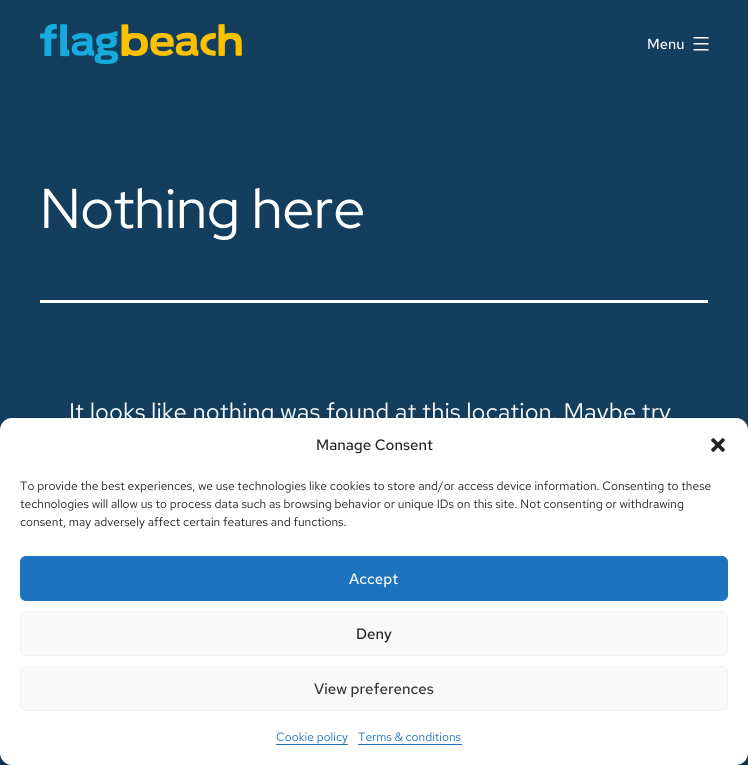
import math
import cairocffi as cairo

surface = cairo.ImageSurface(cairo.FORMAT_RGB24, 748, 765)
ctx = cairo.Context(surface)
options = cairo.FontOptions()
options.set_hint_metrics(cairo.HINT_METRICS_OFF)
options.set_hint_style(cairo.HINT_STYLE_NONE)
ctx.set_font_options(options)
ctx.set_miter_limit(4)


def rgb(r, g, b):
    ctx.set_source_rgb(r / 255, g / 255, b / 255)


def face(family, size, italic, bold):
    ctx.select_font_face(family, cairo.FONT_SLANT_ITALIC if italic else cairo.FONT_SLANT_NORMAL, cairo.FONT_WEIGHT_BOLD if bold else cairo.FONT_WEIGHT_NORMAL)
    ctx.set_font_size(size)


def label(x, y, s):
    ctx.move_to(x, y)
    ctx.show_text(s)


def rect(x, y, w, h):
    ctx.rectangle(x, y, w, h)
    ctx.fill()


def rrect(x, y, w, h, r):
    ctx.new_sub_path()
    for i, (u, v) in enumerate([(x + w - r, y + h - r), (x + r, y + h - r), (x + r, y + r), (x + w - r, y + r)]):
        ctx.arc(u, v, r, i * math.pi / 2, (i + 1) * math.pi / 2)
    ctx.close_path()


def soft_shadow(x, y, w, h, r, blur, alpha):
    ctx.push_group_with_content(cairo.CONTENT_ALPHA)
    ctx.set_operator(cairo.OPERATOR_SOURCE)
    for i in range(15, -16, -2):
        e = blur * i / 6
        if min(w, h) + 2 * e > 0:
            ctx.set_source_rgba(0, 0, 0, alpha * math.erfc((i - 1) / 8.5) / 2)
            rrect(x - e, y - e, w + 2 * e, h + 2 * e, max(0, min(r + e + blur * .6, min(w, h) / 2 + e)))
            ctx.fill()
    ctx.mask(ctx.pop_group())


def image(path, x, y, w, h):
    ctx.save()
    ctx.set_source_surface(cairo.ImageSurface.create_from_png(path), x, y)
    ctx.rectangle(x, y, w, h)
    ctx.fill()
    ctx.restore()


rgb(20, 62, 94)
ctx.paint()
image('image0.png', 40, 24, 202, 40)
face('Red Hat Text Medium', 14.5, 0, 0)
rgb(255, 255, 255)
label(647, 49, 'Menu')
image('image1.png', 693, 37, 16, 14)
rect(40, 300, 668, 3)
face('Red Hat Display', 56, 0, 0)
label(40, 228, 'Nothing here')
face('Red Hat Text', 24, 0, 0)
label(69, 420, 'It looks like nothing was found at this location. Maybe try')
rgb(0, 0, 0)
soft_shadow(0, 424, 748, 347, 12, 3, 0.23)
soft_shadow(0, 428, 748, 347, 12, 10, 0.19)
rgb(255, 255, 255)
rrect(0, 418, 748, 347, 12)
ctx.fill()
face('Red Hat Text Medium', 15, 0, 0)
rgb(34, 34, 34)
label(316, 450, 'Manage Consent')
image('image2.png', 711, 438, 14, 14)
face('Red Hat Text', 12, 0, 0)
label(20, 490, 'To provide the best experiences, we use technologies like cookies to store and/or access device information. Consenting to these')
label(20, 508, 'technologies will allow us to process data such as browsing behavior or unique IDs on this site. Not consenting or withdrawing')
label(20, 526, 'consent, may adversely affect certain features and functions.')
rgb(30, 115, 190)
rrect(20.5, 556.5, 707, 44, 5.5)
ctx.fill_preserve()
ctx.set_line_width(1)
ctx.stroke()
face('Red Hat Text Medium', 15, 0, 0)
rgb(255, 255, 255)
label(349, 584, 'Accept')
rgb(249, 249, 249)
rrect(20.5, 611.5, 707, 44, 5.5)
ctx.fill_preserve()
rgb(242, 242, 242)
ctx.stroke()
rgb(34, 34, 34)
label(356, 639, 'Deny')
rgb(249, 249, 249)
rrect(20.5, 666.5, 707, 44, 5.5)
ctx.fill_preserve()
rgb(242, 242, 242)
ctx.stroke()
rgb(51, 51, 51)
label(314, 694, 'View preferences')
face('Red Hat Text', 12, 0, 0)
rgb(30, 115, 190)
label(276, 741, 'Cookie policy')
rect(276, 744, 72, 1)
label(358, 741, 'Terms & conditions')
rect(358, 744, 104, 1)
surface.write_to_png('render.png')
